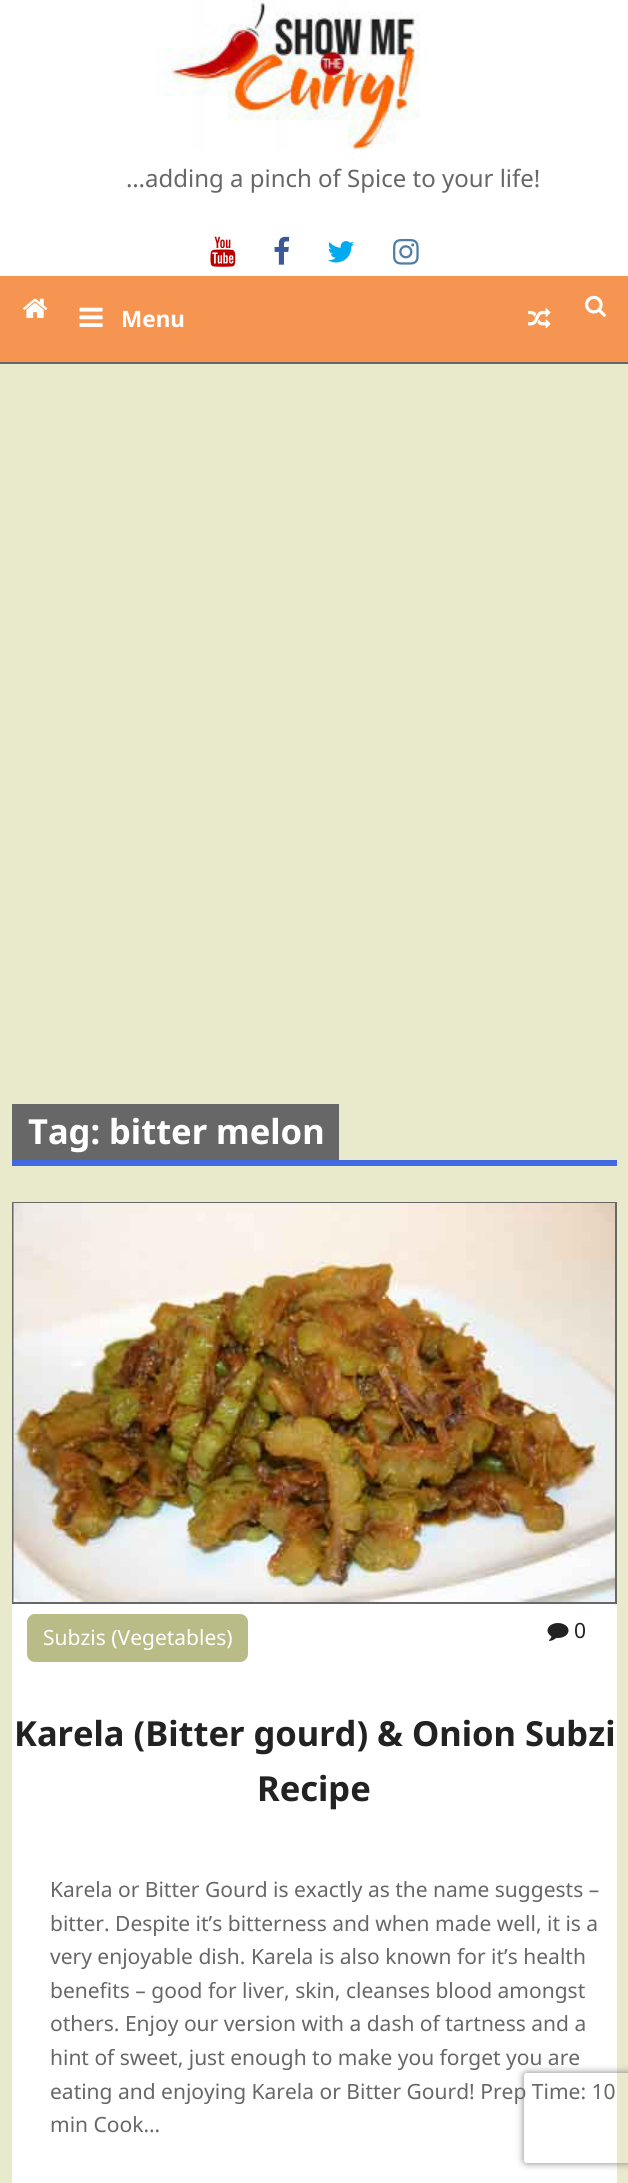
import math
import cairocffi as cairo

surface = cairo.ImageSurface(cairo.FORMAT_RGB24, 628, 2183)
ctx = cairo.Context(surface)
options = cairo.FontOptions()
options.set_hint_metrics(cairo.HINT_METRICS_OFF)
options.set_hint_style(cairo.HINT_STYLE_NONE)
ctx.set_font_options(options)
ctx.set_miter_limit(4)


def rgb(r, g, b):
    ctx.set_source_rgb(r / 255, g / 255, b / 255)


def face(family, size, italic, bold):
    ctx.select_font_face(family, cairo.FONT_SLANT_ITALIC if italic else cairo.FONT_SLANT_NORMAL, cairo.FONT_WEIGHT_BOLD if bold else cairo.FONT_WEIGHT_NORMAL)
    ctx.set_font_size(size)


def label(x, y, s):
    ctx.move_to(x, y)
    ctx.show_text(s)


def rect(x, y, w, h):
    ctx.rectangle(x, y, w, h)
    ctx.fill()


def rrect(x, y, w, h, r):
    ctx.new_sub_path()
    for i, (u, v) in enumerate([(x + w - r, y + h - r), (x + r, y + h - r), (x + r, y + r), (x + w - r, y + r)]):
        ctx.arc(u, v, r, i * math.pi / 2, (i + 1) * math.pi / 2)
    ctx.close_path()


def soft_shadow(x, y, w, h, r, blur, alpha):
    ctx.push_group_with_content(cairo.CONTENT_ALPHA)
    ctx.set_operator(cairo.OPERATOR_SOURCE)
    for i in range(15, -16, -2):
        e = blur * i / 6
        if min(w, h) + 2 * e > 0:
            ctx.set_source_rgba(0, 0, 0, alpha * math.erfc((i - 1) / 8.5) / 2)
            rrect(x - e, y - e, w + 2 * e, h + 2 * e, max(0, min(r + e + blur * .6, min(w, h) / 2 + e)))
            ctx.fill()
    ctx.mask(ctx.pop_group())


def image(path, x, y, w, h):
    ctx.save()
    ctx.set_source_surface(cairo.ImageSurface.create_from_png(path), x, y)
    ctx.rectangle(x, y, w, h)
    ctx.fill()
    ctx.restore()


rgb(233, 234, 204)
ctx.paint()
rgb(255, 255, 255)
rect(0, 0, 628, 276)
image('image0.png', 156, 0, 264, 150)
face('Noto Sans', 24, 0, 0)
rgb(103, 103, 103)
label(126, 187, '…adding a pinch of Spice to your life!')
image('image1.png', 210, 236, 26, 31)
image('image2.png', 274, 236, 16, 29)
image('image3.png', 328, 241, 26, 22)
image('image4.png', 393, 238, 26, 27)
rgb(245, 149, 81)
rect(0, 276, 628, 86)
rgb(103, 103, 103)
rect(0, 362, 628, 2)
image('image5.png', 22, 298, 26, 20)
image('image6.png', 79, 307, 24, 20)
face('Noto Sans', 22.5, 0, 1)
rgb(255, 255, 255)
label(121, 327, 'Menu')
image('image7.png', 528, 308, 23, 21)
image('image8.png', 585, 295, 21, 22)
rgb(65, 105, 225)
rect(12, 1160, 605, 6)
rgb(103, 103, 103)
rect(12, 1104, 327, 56)
face('Noto Sans', 34.5, 0, 1)
rgb(255, 255, 255)
label(28, 1144, 'Tag: bitter melon')
rect(12, 1604, 605, 579)
ctx.rectangle(13, 1203, 603, 400)
rgb(103, 103, 103)
ctx.stroke()
image('image9.png', 13, 1203, 602, 399)
rgb(185, 188, 135)
rrect(27, 1614, 221, 48, 8)
ctx.fill()
face('Noto Sans', 21, 0, 0)
rgb(255, 255, 255)
label(43, 1645, 'Subzis (Vegetables)')
image('image10.png', 547, 1623, 22, 18)
rgb(34, 34, 34)
label(574, 1638, '0')
face('Noto Sans', 34.5, 0, 1)
label(14, 1746, 'Karela (Bitter gourd) & Onion Subzi')
label(257, 1801, 'Recipe')
face('Noto Sans', 21, 0, 0)
rgb(103, 103, 103)
label(50, 1897, 'Karela or Bitter Gourd is exactly as the name suggests –')
label(50, 1931, 'bitter. Despite it’s bitterness and when made well, it is a')
label(50, 1964, 'very enjoyable dish. Karela is also known for it’s health')
label(50, 1998, 'benefits – good for liver, skin, cleanses blood amongst')
label(50, 2031, 'others. Enjoy our version with a dash of tartness and a')
label(50, 2065, 'hint of sweet, just enough to make you forget you are')
label(50, 2099, 'eating and enjoying Karela or Bitter Gourd! Prep Time: 10')
label(50, 2132, 'min Cook…')
ctx.save()
ctx.set_fill_rule(cairo.FILL_RULE_EVEN_ODD)
ctx.new_path()
ctx.move_to(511, 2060)
ctx.line_to(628, 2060)
ctx.line_to(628, 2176)
ctx.line_to(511, 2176)
ctx.close_path()
ctx.move_to(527, 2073)
ctx.line_to(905, 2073)
ctx.curve_to(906.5, 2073, 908, 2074.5, 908, 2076)
ctx.line_to(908, 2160)
ctx.curve_to(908, 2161.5, 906.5, 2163, 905, 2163)
ctx.line_to(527, 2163)
ctx.curve_to(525.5, 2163, 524, 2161.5, 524, 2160)
ctx.line_to(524, 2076)
ctx.curve_to(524, 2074.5, 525.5, 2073, 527, 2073)
ctx.close_path()
ctx.clip()
rgb(128, 128, 128)
soft_shadow(524, 2073, 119, 90, 3, 4, 1)
ctx.restore()
surface.write_to_png('render.png')
